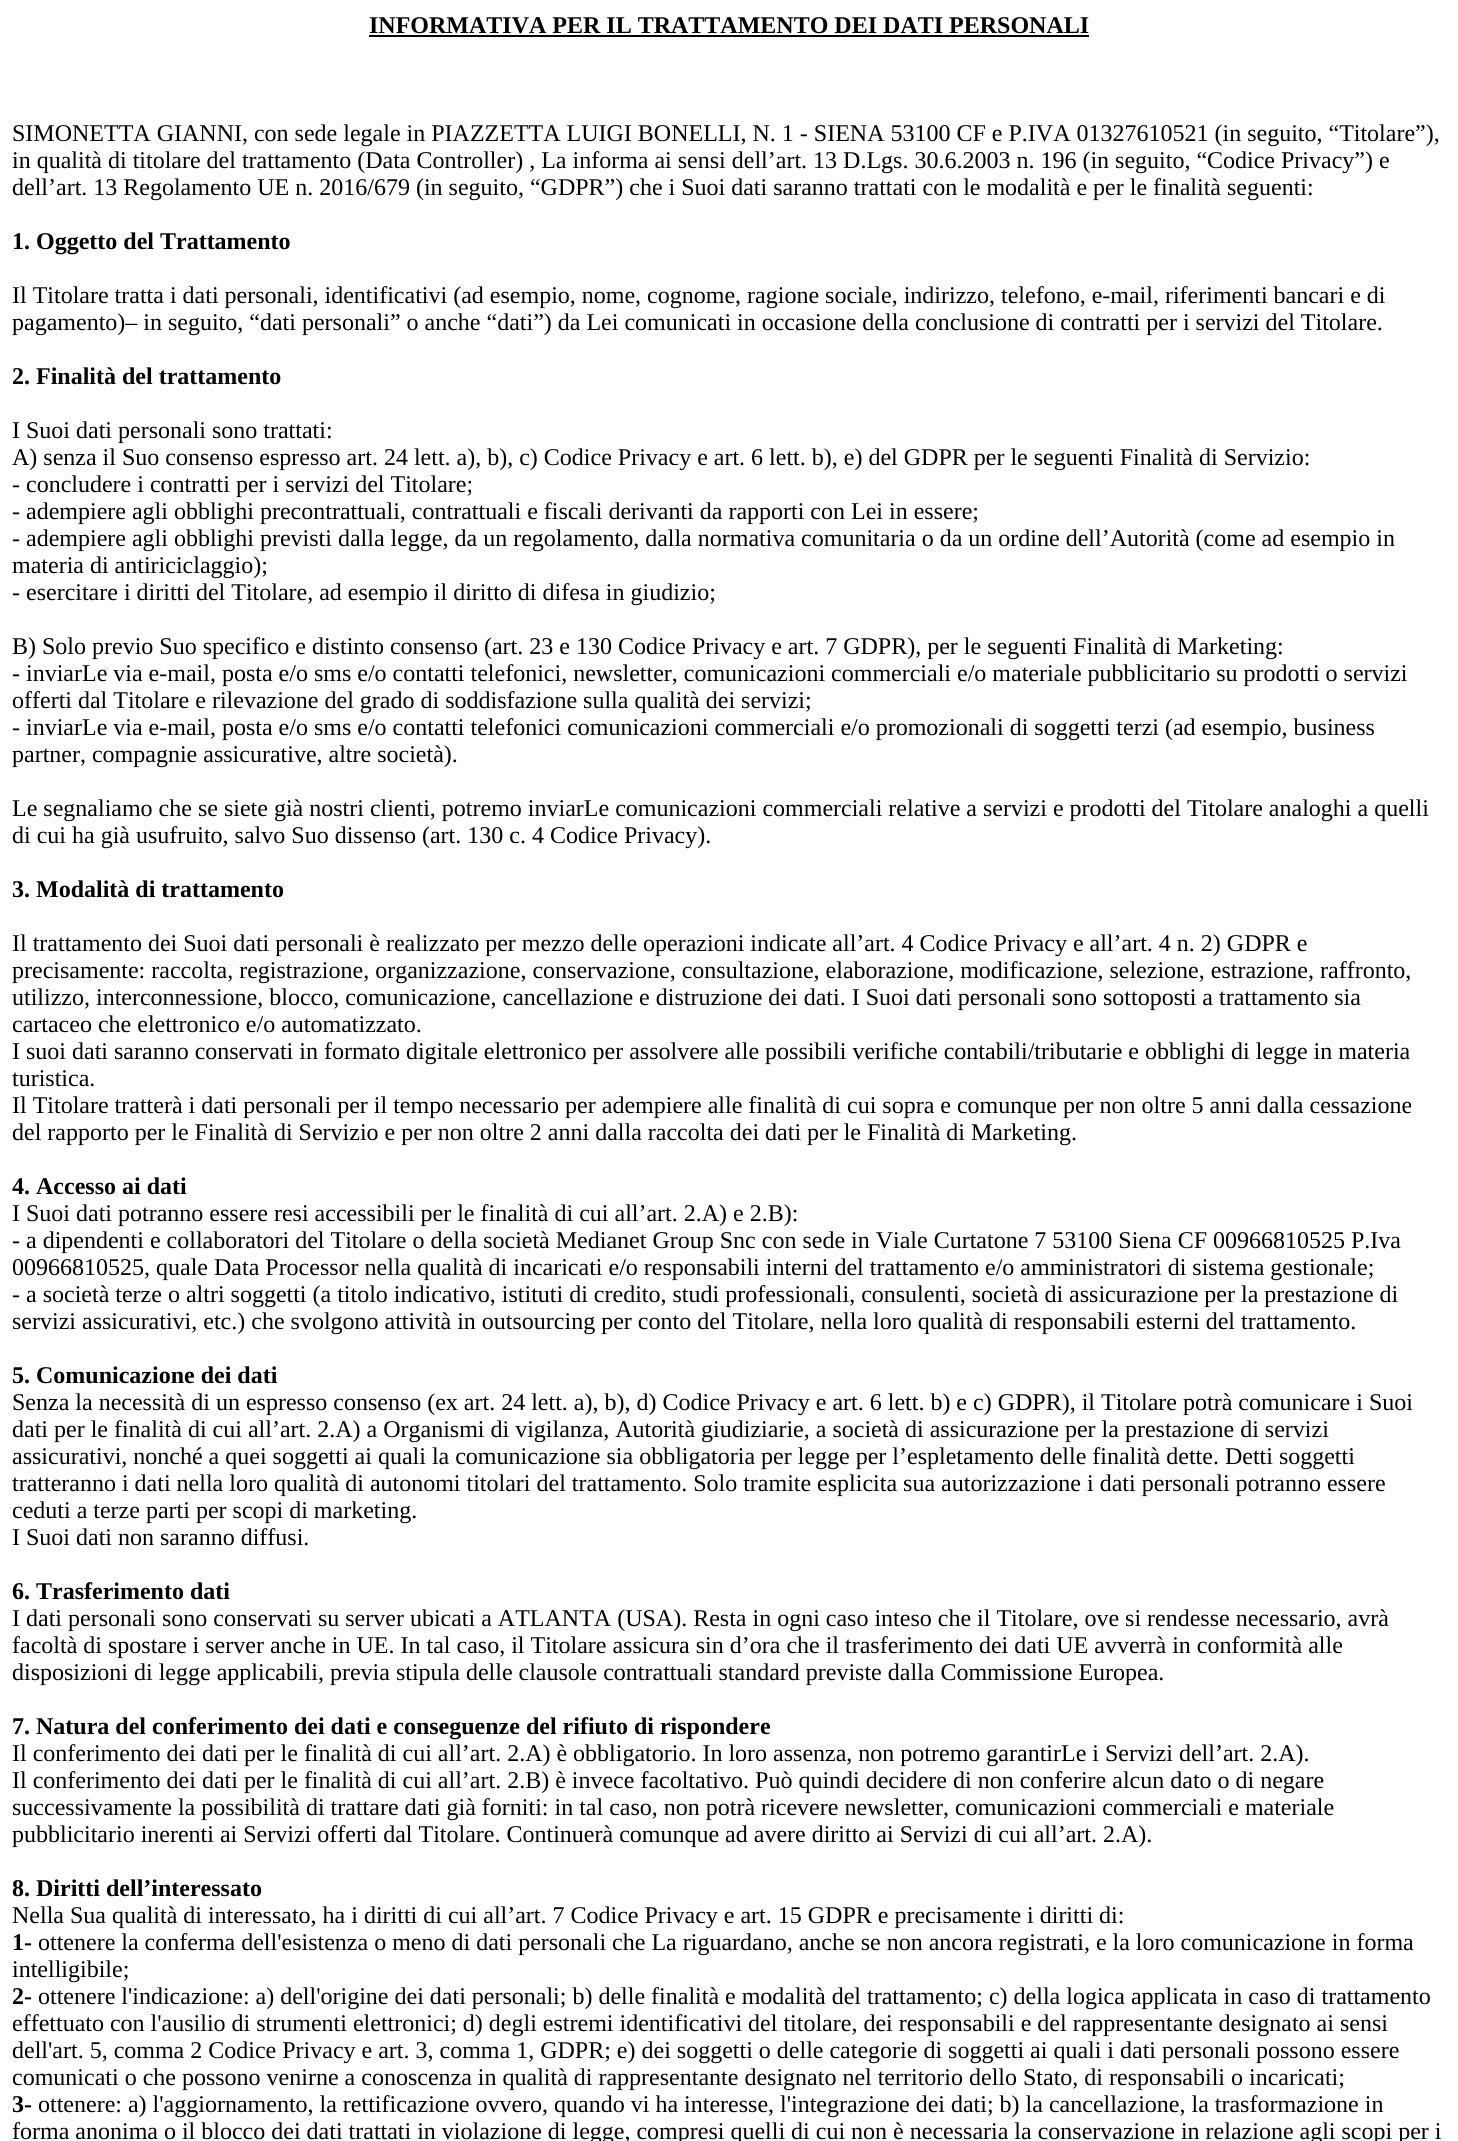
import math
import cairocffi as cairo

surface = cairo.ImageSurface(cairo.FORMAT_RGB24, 1458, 2141)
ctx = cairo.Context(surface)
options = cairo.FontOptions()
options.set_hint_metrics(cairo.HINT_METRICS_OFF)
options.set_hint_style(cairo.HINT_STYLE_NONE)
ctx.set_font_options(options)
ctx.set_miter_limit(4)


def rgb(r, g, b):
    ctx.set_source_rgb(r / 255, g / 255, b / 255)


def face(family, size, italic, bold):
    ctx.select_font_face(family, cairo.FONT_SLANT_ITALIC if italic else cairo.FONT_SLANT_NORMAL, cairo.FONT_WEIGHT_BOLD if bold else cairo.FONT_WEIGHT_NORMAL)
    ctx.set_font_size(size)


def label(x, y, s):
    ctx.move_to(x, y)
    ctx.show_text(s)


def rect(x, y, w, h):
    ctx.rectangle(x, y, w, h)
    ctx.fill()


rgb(255, 255, 255)
ctx.paint()
face('Liberation Serif', 24, 0, 1)
rgb(0, 0, 0)
label(369, 33, 'INFORMATIVA PER IL TRATTAMENTO DEI DATI PERSONALI')
rect(369, 35, 720, 2)
face('Liberation Serif', 24, 0, 0)
label(12, 141, 'SIMONETTA GIANNI, con sede legale in PIAZZETTA LUIGI BONELLI, N. 1 - SIENA 53100 CF e P.IVA 01327610521 (in seguito, “Titolare”),')
label(12, 168, 'in qualità di titolare del trattamento (Data Controller) , La informa ai sensi dell’art. 13 D.Lgs. 30.6.2003 n. 196 (in seguito, “Codice Privacy”) e')
label(12, 195, 'dell’art. 13 Regolamento UE n. 2016/679 (in seguito, “GDPR”) che i Suoi dati saranno trattati con le modalità e per le finalità seguenti:')
face('Liberation Serif', 24, 0, 1)
label(12, 249, '1. Oggetto del Trattamento')
face('Liberation Serif', 24, 0, 0)
label(12, 303, 'Il Titolare tratta i dati personali, identificativi (ad esempio, nome, cognome, ragione sociale, indirizzo, telefono, e-mail, riferimenti bancari e di')
label(12, 330, 'pagamento)– in seguito, “dati personali” o anche “dati”) da Lei comunicati in occasione della conclusione di contratti per i servizi del Titolare.')
face('Liberation Serif', 24, 0, 1)
label(12, 384, '2. Finalità del trattamento')
face('Liberation Serif', 24, 0, 0)
label(12, 438, 'I Suoi dati personali sono trattati:')
label(12, 465, 'A) senza il Suo consenso espresso art. 24 lett. a), b), c) Codice Privacy e art. 6 lett. b), e) del GDPR per le seguenti Finalità di Servizio:')
label(12, 492, '- concludere i contratti per i servizi del Titolare;')
label(12, 519, '- adempiere agli obblighi precontrattuali, contrattuali e fiscali derivanti da rapporti con Lei in essere;')
label(12, 546, '- adempiere agli obblighi previsti dalla legge, da un regolamento, dalla normativa comunitaria o da un ordine dell’Autorità (come ad esempio in')
label(12, 573, 'materia di antiriciclaggio);')
label(12, 600, '- esercitare i diritti del Titolare, ad esempio il diritto di difesa in giudizio;')
label(12, 654, 'B) Solo previo Suo specifico e distinto consenso (art. 23 e 130 Codice Privacy e art. 7 GDPR), per le seguenti Finalità di Marketing:')
label(12, 681, '- inviarLe via e-mail, posta e/o sms e/o contatti telefonici, newsletter, comunicazioni commerciali e/o materiale pubblicitario su prodotti o servizi')
label(12, 708, 'offerti dal Titolare e rilevazione del grado di soddisfazione sulla qualità dei servizi;')
label(12, 735, '- inviarLe via e-mail, posta e/o sms e/o contatti telefonici comunicazioni commerciali e/o promozionali di soggetti terzi (ad esempio, business')
label(12, 762, 'partner, compagnie assicurative, altre società).')
label(12, 816, 'Le segnaliamo che se siete già nostri clienti, potremo inviarLe comunicazioni commerciali relative a servizi e prodotti del Titolare analoghi a quelli')
label(12, 843, 'di cui ha già usufruito, salvo Suo dissenso (art. 130 c. 4 Codice Privacy).')
face('Liberation Serif', 24, 0, 1)
label(12, 897, '3. Modalità di trattamento')
face('Liberation Serif', 24, 0, 0)
label(12, 951, 'Il trattamento dei Suoi dati personali è realizzato per mezzo delle operazioni indicate all’art. 4 Codice Privacy e all’art. 4 n. 2) GDPR e')
label(12, 978, 'precisamente: raccolta, registrazione, organizzazione, conservazione, consultazione, elaborazione, modificazione, selezione, estrazione, raffronto,')
label(12, 1005, 'utilizzo, interconnessione, blocco, comunicazione, cancellazione e distruzione dei dati. I Suoi dati personali sono sottoposti a trattamento sia')
label(12, 1032, 'cartaceo che elettronico e/o automatizzato.')
label(12, 1059, 'I suoi dati saranno conservati in formato digitale elettronico per assolvere alle possibili verifiche contabili/tributarie e obblighi di legge in materia')
label(12, 1086, 'turistica.')
label(12, 1113, 'Il Titolare tratterà i dati personali per il tempo necessario per adempiere alle finalità di cui sopra e comunque per non oltre 5 anni dalla cessazione')
label(12, 1140, 'del rapporto per le Finalità di Servizio e per non oltre 2 anni dalla raccolta dei dati per le Finalità di Marketing.')
face('Liberation Serif', 24, 0, 1)
label(12, 1194, '4. Accesso ai dati')
face('Liberation Serif', 24, 0, 0)
label(12, 1221, 'I Suoi dati potranno essere resi accessibili per le finalità di cui all’art. 2.A) e 2.B):')
label(12, 1248, '- a dipendenti e collaboratori del Titolare o della società Medianet Group Snc con sede in Viale Curtatone 7 53100 Siena CF 00966810525 P.Iva')
label(12, 1275, '00966810525, quale Data Processor nella qualità di incaricati e/o responsabili interni del trattamento e/o amministratori di sistema gestionale;')
label(12, 1302, '- a società terze o altri soggetti (a titolo indicativo, istituti di credito, studi professionali, consulenti, società di assicurazione per la prestazione di')
label(12, 1329, 'servizi assicurativi, etc.) che svolgono attività in outsourcing per conto del Titolare, nella loro qualità di responsabili esterni del trattamento.')
face('Liberation Serif', 24, 0, 1)
label(12, 1383, '5. Comunicazione dei dati')
face('Liberation Serif', 24, 0, 0)
label(12, 1410, 'Senza la necessità di un espresso consenso (ex art. 24 lett. a), b), d) Codice Privacy e art. 6 lett. b) e c) GDPR), il Titolare potrà comunicare i Suoi')
label(12, 1437, 'dati per le finalità di cui all’art. 2.A) a Organismi di vigilanza, Autorità giudiziarie, a società di assicurazione per la prestazione di servizi')
label(12, 1464, 'assicurativi, nonché a quei soggetti ai quali la comunicazione sia obbligatoria per legge per l’espletamento delle finalità dette. Detti soggetti')
label(12, 1491, 'tratteranno i dati nella loro qualità di autonomi titolari del trattamento. Solo tramite esplicita sua autorizzazione i dati personali potranno essere')
label(12, 1518, 'ceduti a terze parti per scopi di marketing.')
label(12, 1545, 'I Suoi dati non saranno diffusi.')
face('Liberation Serif', 24, 0, 1)
label(12, 1599, '6. Trasferimento dati')
face('Liberation Serif', 24, 0, 0)
label(12, 1626, 'I dati personali sono conservati su server ubicati a ATLANTA (USA). Resta in ogni caso inteso che il Titolare, ove si rendesse necessario, avrà')
label(12, 1653, 'facoltà di spostare i server anche in UE. In tal caso, il Titolare assicura sin d’ora che il trasferimento dei dati UE avverrà in conformità alle')
label(12, 1680, 'disposizioni di legge applicabili, previa stipula delle clausole contrattuali standard previste dalla Commissione Europea.')
face('Liberation Serif', 24, 0, 1)
label(12, 1734, '7. Natura del conferimento dei dati e conseguenze del rifiuto di rispondere')
face('Liberation Serif', 24, 0, 0)
label(12, 1761, 'Il conferimento dei dati per le finalità di cui all’art. 2.A) è obbligatorio. In loro assenza, non potremo garantirLe i Servizi dell’art. 2.A).')
label(12, 1788, 'Il conferimento dei dati per le finalità di cui all’art. 2.B) è invece facoltativo. Può quindi decidere di non conferire alcun dato o di negare')
label(12, 1815, 'successivamente la possibilità di trattare dati già forniti: in tal caso, non potrà ricevere newsletter, comunicazioni commerciali e materiale')
label(12, 1842, 'pubblicitario inerenti ai Servizi offerti dal Titolare. Continuerà comunque ad avere diritto ai Servizi di cui all’art. 2.A).')
face('Liberation Serif', 24, 0, 1)
label(12, 1896, '8. Diritti dell’interessato')
face('Liberation Serif', 24, 0, 0)
label(12, 1923, 'Nella Sua qualità di interessato, ha i diritti di cui all’art. 7 Codice Privacy e art. 15 GDPR e precisamente i diritti di:')
face('Liberation Serif', 24, 0, 1)
label(12, 1950, '1-')
face('Liberation Serif', 24, 0, 0)
label(38, 1950, 'ottenere la conferma dell\'esistenza o meno di dati personali che La riguardano, anche se non ancora registrati, e la loro comunicazione in forma')
label(12, 1977, 'intelligibile;')
face('Liberation Serif', 24, 0, 1)
label(12, 2004, '2-')
face('Liberation Serif', 24, 0, 0)
label(38, 2004, 'ottenere l\'indicazione: a) dell\'origine dei dati personali; b) delle finalità e modalità del trattamento; c) della logica applicata in caso di trattamento')
label(12, 2031, 'effettuato con l\'ausilio di strumenti elettronici; d) degli estremi identificativi del titolare, dei responsabili e del rappresentante designato ai sensi')
label(12, 2058, 'dell\'art. 5, comma 2 Codice Privacy e art. 3, comma 1, GDPR; e) dei soggetti o delle categorie di soggetti ai quali i dati personali possono essere')
label(12, 2085, 'comunicati o che possono venirne a conoscenza in qualità di rappresentante designato nel territorio dello Stato, di responsabili o incaricati;')
face('Liberation Serif', 24, 0, 1)
label(12, 2112, '3-')
face('Liberation Serif', 24, 0, 0)
label(38, 2112, 'ottenere: a) l\'aggiornamento, la rettificazione ovvero, quando vi ha interesse, l\'integrazione dei dati; b) la cancellazione, la trasformazione in')
label(12, 2139, 'forma anonima o il blocco dei dati trattati in violazione di legge, compresi quelli di cui non è necessaria la conservazione in relazione agli scopi per i')
surface.write_to_png('render.png')
